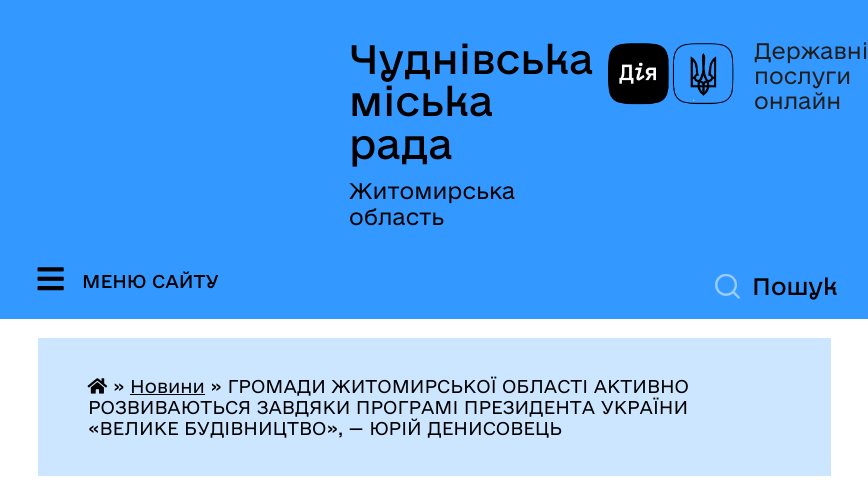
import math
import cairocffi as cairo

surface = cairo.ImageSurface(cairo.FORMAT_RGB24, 868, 482)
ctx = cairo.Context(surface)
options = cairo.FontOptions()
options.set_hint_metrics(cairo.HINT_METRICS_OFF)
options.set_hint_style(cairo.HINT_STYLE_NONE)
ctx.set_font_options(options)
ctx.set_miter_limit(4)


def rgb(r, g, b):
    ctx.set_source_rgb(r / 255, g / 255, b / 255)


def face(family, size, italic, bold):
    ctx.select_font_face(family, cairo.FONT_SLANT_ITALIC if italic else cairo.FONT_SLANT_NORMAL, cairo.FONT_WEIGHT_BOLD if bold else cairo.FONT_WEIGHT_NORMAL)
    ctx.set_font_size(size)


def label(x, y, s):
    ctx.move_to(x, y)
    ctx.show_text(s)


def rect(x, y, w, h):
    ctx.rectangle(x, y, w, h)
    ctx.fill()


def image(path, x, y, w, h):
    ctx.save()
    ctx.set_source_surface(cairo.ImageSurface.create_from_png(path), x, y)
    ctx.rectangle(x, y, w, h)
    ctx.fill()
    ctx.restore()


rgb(255, 255, 255)
ctx.paint()
rgb(51, 152, 255)
rect(0, 0, 868, 319)
face('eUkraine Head', 38.75, 0, 0)
rgb(0, 0, 0)
label(349, 74, 'Чуднівська')
label(349, 116, 'міська')
label(349, 159, 'рада')
face('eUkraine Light', 21.25, 0, 0)
label(349, 199, 'Житомирська')
label(349, 225, 'область')
image('image0.png', 608, 43, 126, 62)
rgb(29, 29, 27)
label(754, 59, 'Державні')
label(754, 84, 'послуги')
label(754, 109, 'онлайн')
image('image1.png', 37, 267, 27, 24)
face('eUkraine Head', 17.5, 0, 0)
rgb(0, 0, 0)
label(82, 288, 'МЕНЮ САЙТУ')
image('image2.png', 715, 274, 25, 25)
face('eUkraine Head', 22.5, 0, 0)
label(752, 295, 'Пошук')
rgb(204, 230, 255)
rect(38, 338, 793, 138)
image('image3.png', 87, 378, 21, 16)
face('eUkraine Light', 17.5, 0, 0)
rgb(0, 0, 0)
label(113, 393, '» Новини » ГРОМАДИ ЖИТОМИРСЬКОЇ ОБЛАСТІ АКТИВНО')
rect(130, 394, 75, 1)
label(88, 414, 'РОЗВИВАЮТЬСЯ ЗАВДЯКИ ПРОГРАМІ ПРЕЗИДЕНТА УКРАЇНИ')
label(88, 435, '«ВЕЛИКЕ БУДІВНИЦТВО», — ЮРІЙ ДЕНИСОВЕЦЬ')
surface.write_to_png('render.png')
